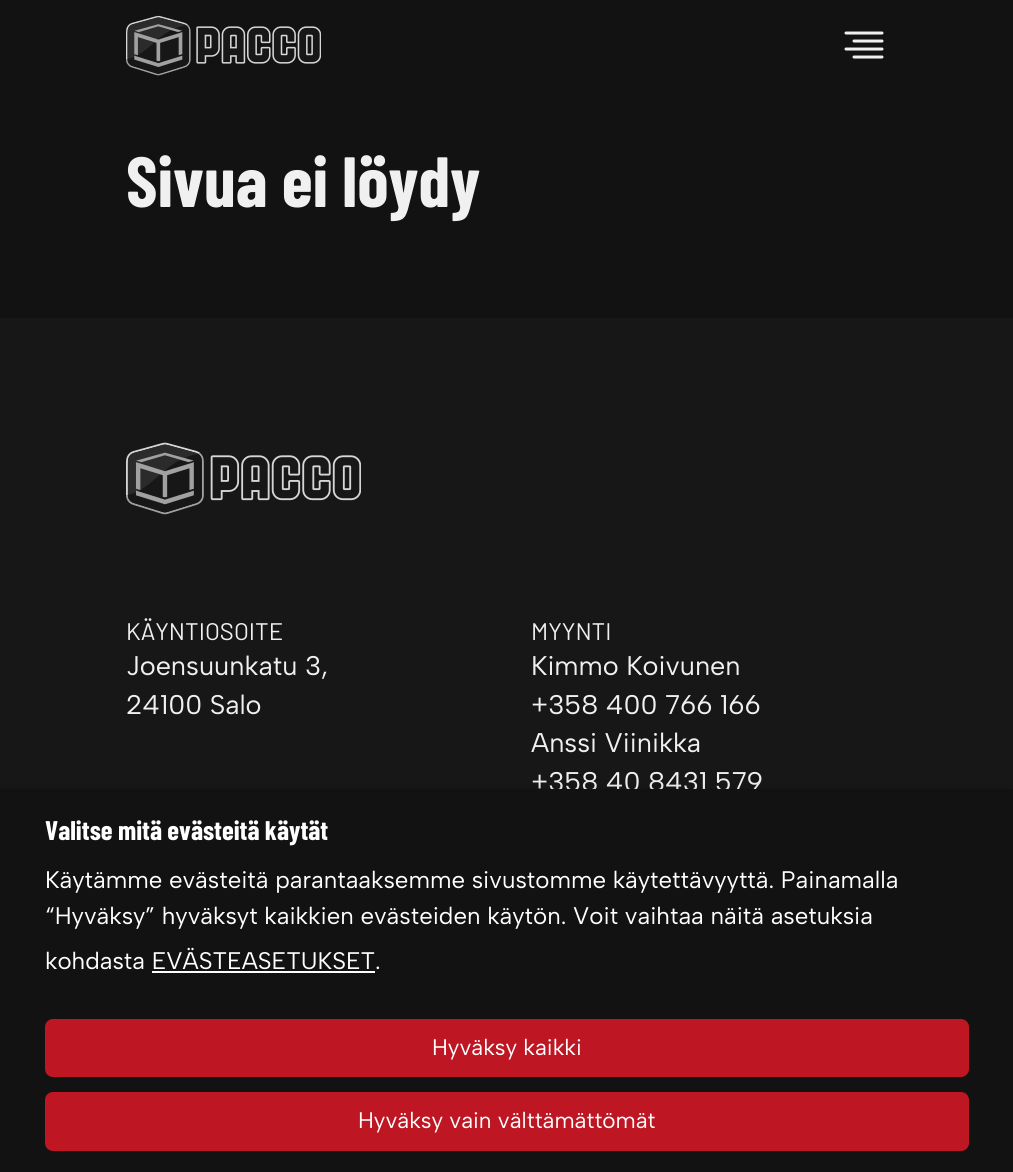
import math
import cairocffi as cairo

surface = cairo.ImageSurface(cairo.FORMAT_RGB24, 1013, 1172)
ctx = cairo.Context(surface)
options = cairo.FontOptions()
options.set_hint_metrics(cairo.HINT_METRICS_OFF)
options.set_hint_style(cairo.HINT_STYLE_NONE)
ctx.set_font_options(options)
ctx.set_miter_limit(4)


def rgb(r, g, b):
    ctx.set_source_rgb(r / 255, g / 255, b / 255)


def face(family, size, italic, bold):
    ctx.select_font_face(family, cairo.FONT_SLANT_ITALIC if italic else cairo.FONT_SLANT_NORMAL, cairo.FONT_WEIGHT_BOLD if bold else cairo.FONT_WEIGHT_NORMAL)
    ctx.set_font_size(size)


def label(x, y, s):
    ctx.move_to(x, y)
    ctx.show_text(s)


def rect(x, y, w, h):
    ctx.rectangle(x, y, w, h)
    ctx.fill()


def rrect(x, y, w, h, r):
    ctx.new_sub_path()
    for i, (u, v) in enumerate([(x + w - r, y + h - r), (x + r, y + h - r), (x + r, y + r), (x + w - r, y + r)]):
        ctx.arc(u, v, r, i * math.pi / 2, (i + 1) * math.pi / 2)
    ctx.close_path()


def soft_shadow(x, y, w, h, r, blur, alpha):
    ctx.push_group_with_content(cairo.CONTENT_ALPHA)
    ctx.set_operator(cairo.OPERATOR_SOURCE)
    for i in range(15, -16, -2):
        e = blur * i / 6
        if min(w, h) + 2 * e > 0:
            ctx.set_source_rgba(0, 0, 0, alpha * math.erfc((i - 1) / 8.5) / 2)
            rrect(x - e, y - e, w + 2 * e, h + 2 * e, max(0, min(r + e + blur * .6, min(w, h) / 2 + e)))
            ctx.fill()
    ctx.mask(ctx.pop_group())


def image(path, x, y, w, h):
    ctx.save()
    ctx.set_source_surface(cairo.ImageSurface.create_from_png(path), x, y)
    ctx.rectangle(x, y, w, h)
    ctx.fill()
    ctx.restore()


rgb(18, 18, 18)
ctx.paint()
image('image0.png', 126, 15, 195, 61)
ctx.new_path()
ctx.move_to(882, 41)
ctx.line_to(854, 41)
ctx.move_to(882, 33)
ctx.line_to(846, 33)
ctx.move_to(882, 49)
ctx.line_to(846, 49)
ctx.move_to(882, 57)
ctx.line_to(854, 57)
rgb(240, 240, 240)
ctx.set_line_width(3)
ctx.set_line_cap(cairo.LINE_CAP_ROUND)
ctx.set_line_join(cairo.LINE_JOIN_ROUND)
ctx.stroke()
face('Barlow Condensed', 71, 0, 1)
label(126, 207, 'Sivua ei löydy')
rgb(23, 23, 23)
rect(0, 318, 1013, 471)
image('image1.png', 126, 442, 235, 73)
face('Barlow', 24, 0, 0)
rgb(240, 240, 240)
label(126, 640, 'KÄYNTIOSOITE')
face('Albert Sans', 27, 0, 0)
label(126, 675, 'Joensuunkatu 3,')
label(126, 714, '24100 Salo')
face('Barlow', 24, 0, 0)
label(531, 640, 'MYYNTI')
face('Albert Sans', 27, 0, 0)
label(531, 675, 'Kimmo Koivunen')
label(531, 714, '+358 400 766 166')
label(531, 752, 'Anssi Viinikka')
label(531, 791, '+358 40 8431 579')
rgb(0, 0, 0)
soft_shadow(0, 797, 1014, 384, 0, 7.5, 0.5)
rgb(18, 18, 18)
rect(0, 789, 1013, 383)
face('Barlow Condensed', 27, 0, 1)
rgb(255, 255, 255)
label(45, 840, 'Valitse mitä evästeitä käytät')
face('Albert Sans', 24, 0, 0)
label(45, 888, 'Käytämme evästeitä parantaaksemme sivustomme käytettävyyttä. Painamalla')
label(45, 924, '“Hyväksy” hyväksyt kaikkien evästeiden käytön. Voit vaihtaa näitä asetuksia')
label(45, 969, 'kohdasta EVÄSTEASETUKSET')
label(375, 969, '.')
rect(152, 971, 223, 2)
rgb(190, 22, 34)
rrect(45, 1019, 924, 58, 8)
ctx.fill()
face('Albert Sans', 22.5, 0, 0)
rgb(255, 255, 255)
label(432, 1055, 'Hyväksy kaikki')
rgb(190, 22, 34)
rrect(45, 1092, 924, 59, 8)
ctx.fill()
rgb(255, 255, 255)
label(358, 1128, 'Hyväksy vain välttämättömät')
surface.write_to_png('render.png')
